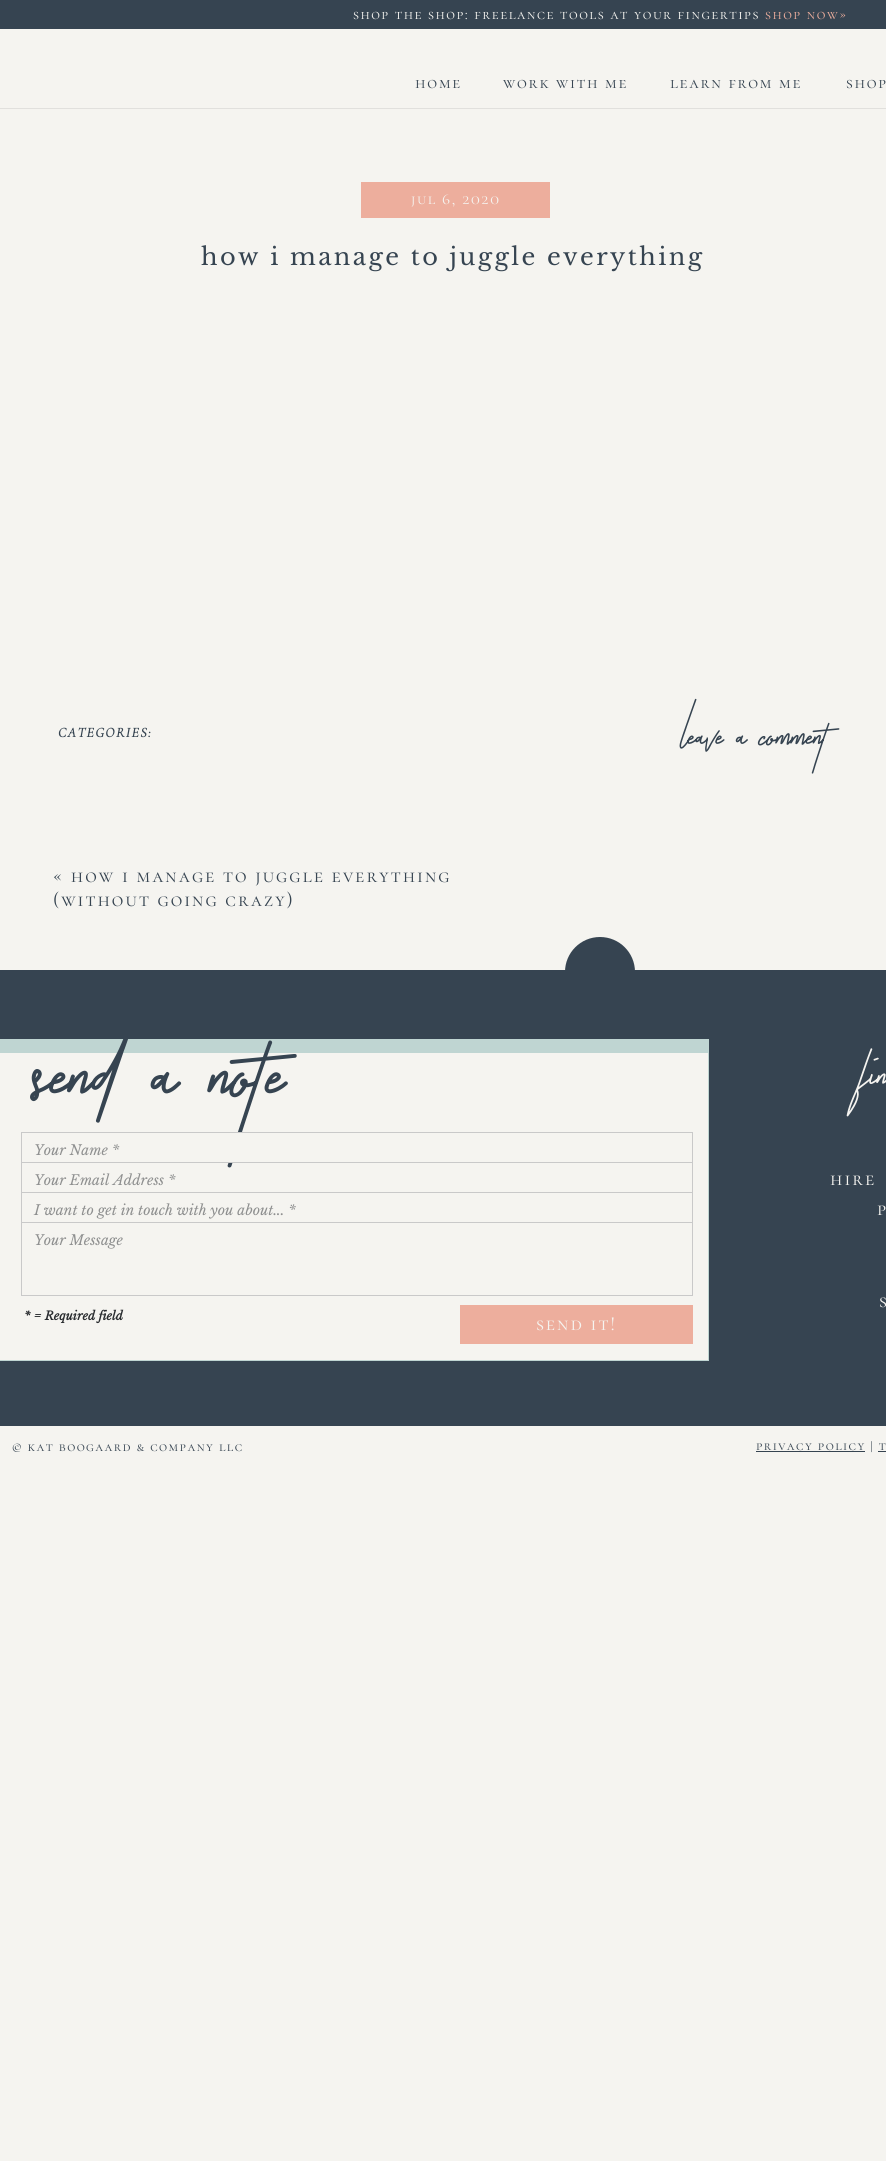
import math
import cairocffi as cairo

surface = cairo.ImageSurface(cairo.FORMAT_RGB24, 886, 2161)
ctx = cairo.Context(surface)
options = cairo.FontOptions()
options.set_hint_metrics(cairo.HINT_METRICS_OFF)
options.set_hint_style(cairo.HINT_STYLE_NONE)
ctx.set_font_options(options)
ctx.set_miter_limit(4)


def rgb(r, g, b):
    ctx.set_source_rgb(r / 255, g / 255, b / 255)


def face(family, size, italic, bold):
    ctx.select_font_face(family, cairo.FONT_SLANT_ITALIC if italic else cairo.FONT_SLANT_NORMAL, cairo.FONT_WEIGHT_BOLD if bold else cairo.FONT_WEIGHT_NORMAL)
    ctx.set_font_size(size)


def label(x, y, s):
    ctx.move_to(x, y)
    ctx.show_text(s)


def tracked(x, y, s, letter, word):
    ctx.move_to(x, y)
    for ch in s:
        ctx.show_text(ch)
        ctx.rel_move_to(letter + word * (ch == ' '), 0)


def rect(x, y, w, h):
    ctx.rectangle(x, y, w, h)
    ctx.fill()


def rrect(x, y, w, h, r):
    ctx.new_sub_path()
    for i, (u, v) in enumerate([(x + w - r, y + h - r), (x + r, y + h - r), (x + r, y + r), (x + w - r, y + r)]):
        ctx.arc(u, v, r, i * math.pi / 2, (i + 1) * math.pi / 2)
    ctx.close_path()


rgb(245, 244, 240)
ctx.paint()
rgb(54, 68, 81)
rect(0, 0, 886, 29)
face('Cormorant SC', 15, 0, 0)
rgb(245, 244, 240)
tracked(353, 19, 'shop the shop: freelance tools at your fingertips', 1.5, 0)
rgb(237, 174, 157)
tracked(765, 19, 'shop now»', 1.5, 0)
face('Cormorant SC', 17, 0, 0)
rgb(54, 68, 81)
tracked(415, 88, 'home', 1.75, 0)
tracked(503, 88, 'work with me', 1.75, 0)
tracked(670, 88, 'learn from me', 1.75, 0)
tracked(846, 88, 'shop', 1.75, 0)
rgb(225, 224, 221)
rect(0, 108, 886, 1)
rgb(237, 174, 157)
rect(361, 182, 189, 36)
face('Cormorant SC', 16, 0, 0)
rgb(245, 244, 240)
tracked(411, 204, 'jul 6, 2020', 1.6, 0)
face('Libre Baskerville', 24, 0, 0)
rgb(54, 68, 81)
tracked(201, 265, 'how i manage to juggle everything', 2.4, 0)
face('Cormorant Garamond', 14, 1, 1)
tracked(58, 737, 'CATEGORIES:', 1.4, 0)
face('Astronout', 80, 0, 0)
label(681, 755, 'leave a comment')
face('Cormorant SC', 20, 0, 0)
tracked(53, 882, '« how i manage to juggle everything', 2, 0)
tracked(53, 906, '(without going crazy)', 2, 0)
rect(0, 970, 886, 456)
rgb(245, 244, 240)
rect(0, 1053, 708, 307)
ctx.rectangle(-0.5, 1049.5, 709, 311)
rgb(191, 213, 210)
ctx.set_line_width(1)
ctx.stroke()
rect(0, 1039, 709, 14)
face('Astronout', 200, 0, 0)
rgb(54, 68, 81)
label(32, 1121, 'send a note')
rgb(245, 244, 240)
rect(228, 1133, 14, 29)
ctx.rectangle(21.5, 1132.5, 671, 30)
rgb(201, 201, 201)
ctx.stroke()
face('Libre Baskerville', 14, 1, 0)
rgb(143, 144, 144)
label(34, 1155, 'Your Name *')
ctx.rectangle(21.5, 1162.5, 671, 30)
rgb(201, 201, 201)
ctx.stroke()
rgb(143, 144, 144)
label(34, 1185, 'Your Email Address *')
face('Cormorant SC', 20, 0, 0)
rgb(245, 244, 240)
tracked(830, 1185, 'hire', 2, 0)
ctx.rectangle(21.5, 1192.5, 671, 30)
rgb(201, 201, 201)
ctx.stroke()
face('Libre Baskerville', 14, 1, 0)
rgb(143, 144, 144)
label(34, 1215, 'I want to get in touch with you about... *')
ctx.rectangle(21.5, 1222.5, 671, 73)
rgb(201, 201, 201)
ctx.stroke()
rgb(143, 144, 144)
label(34, 1245, 'Your Message')
rgb(237, 174, 157)
rect(460, 1305, 233, 39)
face('Cormorant SC', 20, 0, 0)
rgb(245, 244, 240)
tracked(536, 1330, 'send it!', 2, 0)
rgb(54, 68, 81)
rrect(565, 937, 70, 71, 35)
ctx.fill()
face('Astronout', 90, 0, 0)
rgb(245, 244, 240)
label(860, 1096, 'fin')
face('Cormorant SC', 20, 0, 0)
tracked(877, 1215, 'p', 2, 0)
tracked(879, 1307, 's', 2, 0)
face('Libre Baskerville', 12, 1, 1)
rgb(41, 44, 47)
label(24, 1320, '* = Required field')
face('Cormorant SC', 14, 0, 0)
rgb(54, 68, 81)
tracked(12, 1451, '© kat boogaard & company llc', 1.4, 0)
rect(756, 1451, 109, 1)
tracked(756, 1450, 'privacy policy | t', 1.4, 0)
rect(878, 1451, 8, 1)
surface.write_to_png('render.png')
